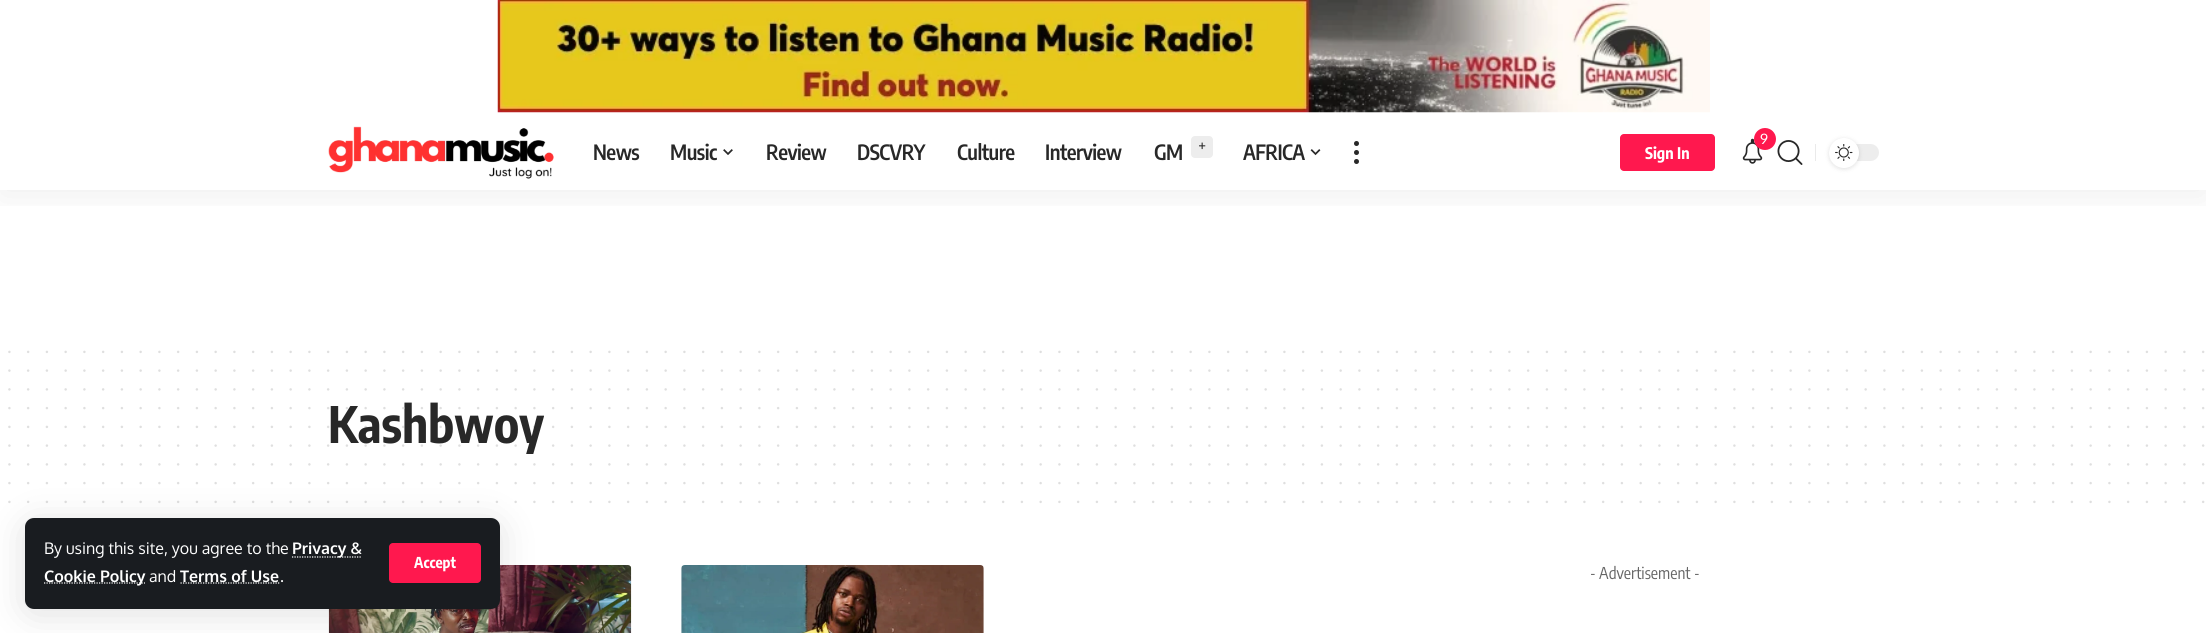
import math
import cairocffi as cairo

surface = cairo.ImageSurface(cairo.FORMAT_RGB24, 2206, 633)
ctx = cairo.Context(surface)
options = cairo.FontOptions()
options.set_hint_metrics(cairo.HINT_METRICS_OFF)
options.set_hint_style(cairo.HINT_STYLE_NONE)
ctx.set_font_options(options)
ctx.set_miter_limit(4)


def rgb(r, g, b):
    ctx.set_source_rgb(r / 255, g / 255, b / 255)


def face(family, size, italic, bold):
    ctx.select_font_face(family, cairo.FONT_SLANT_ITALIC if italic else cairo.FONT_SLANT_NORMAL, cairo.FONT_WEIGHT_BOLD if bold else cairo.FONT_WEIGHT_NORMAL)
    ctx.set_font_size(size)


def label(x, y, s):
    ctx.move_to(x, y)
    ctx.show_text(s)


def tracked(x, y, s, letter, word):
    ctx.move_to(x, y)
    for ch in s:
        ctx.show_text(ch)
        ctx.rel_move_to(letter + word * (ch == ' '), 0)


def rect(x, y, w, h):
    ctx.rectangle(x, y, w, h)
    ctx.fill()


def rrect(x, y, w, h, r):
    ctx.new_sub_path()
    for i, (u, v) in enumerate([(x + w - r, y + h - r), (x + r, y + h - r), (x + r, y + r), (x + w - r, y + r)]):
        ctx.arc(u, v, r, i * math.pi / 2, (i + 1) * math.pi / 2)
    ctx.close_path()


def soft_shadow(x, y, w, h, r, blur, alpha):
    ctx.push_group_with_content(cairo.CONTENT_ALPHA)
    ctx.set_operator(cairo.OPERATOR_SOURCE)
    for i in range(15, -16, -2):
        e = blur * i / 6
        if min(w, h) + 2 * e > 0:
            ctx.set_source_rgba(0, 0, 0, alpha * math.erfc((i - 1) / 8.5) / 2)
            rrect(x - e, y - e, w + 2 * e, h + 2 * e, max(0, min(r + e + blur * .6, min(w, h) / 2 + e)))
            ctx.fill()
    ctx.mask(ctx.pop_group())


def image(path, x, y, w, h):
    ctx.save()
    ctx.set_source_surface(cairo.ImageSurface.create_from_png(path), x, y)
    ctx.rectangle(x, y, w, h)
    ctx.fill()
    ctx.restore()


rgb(255, 255, 255)
ctx.paint()
image('image0.png', 497, 0, 1213, 113)
ctx.save()
ctx.rectangle(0, 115, 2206, 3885)
ctx.clip()
ctx.rectangle(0, 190, 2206, 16)
ctx.clip()
rgb(0, 0, 0)
soft_shadow(0, 120, 2206, 75, 0, 19, 0.07)
ctx.restore()
image('image1.png', 328, 126, 226, 53)
face('Encode Sans Condensed SemiBold', 21, 0, 0)
rgb(40, 40, 40)
tracked(593, 160, 'News', -0.5, 0)
tracked(670, 160, 'Music', -0.5, 0)
image('image2.png', 723, 149, 10, 6)
tracked(766, 160, 'Review', -0.5, 0)
tracked(857, 160, 'DSCVRY', -0.5, 0)
tracked(957, 160, 'Culture', -0.5, 0)
tracked(1045, 160, 'Interview', -0.5, 0)
tracked(1154, 160, 'GM', -0.5, 0)
rgb(237, 237, 237)
rrect(1191, 136, 22, 22, 4)
ctx.fill()
face('Encode Sans Condensed', 16.25, 0, 0)
rgb(40, 40, 40)
label(1198, 152, '+')
face('Encode Sans Condensed SemiBold', 21, 0, 0)
tracked(1243, 160, 'AFRICA', -0.5, 0)
image('image3.png', 1310, 149, 11, 7)
ctx.arc(1356.5, 143.5, 2.5, 0, 2 * math.pi)
ctx.fill()
ctx.arc(1356.5, 152.5, 2.5, 0, 2 * math.pi)
ctx.fill()
ctx.arc(1356.5, 161.5, 2.5, 0, 2 * math.pi)
ctx.fill()
image('image4.png', 1742, 138, 21, 26)
rgb(255, 24, 78)
ctx.arc(1765, 139, 11, 0, 2 * math.pi)
ctx.fill()
face('Oxygen', 14, 0, 0)
rgb(255, 255, 255)
label(1760, 144, '9')
rgb(234, 234, 234)
rect(1815, 144, 1, 17)
rgb(237, 237, 237)
rrect(1829, 144, 50, 17, 8.5)
ctx.fill()
rgb(0, 0, 0)
soft_shadow(1829, 139, 30, 30, 15, 2.5, 0.12)
rgb(255, 255, 255)
ctx.arc(1844, 153, 15, 0, 2 * math.pi)
ctx.fill()
image('image5.png', 1835, 144, 18, 17)
rgb(255, 24, 78)
rrect(1620, 134, 95, 37, 4)
ctx.fill()
face('Encode Sans Condensed', 16, 0, 1)
rgb(255, 255, 255)
label(1645, 159, 'Sign In')
image('image6.png', 1777, 140, 26, 25)
ctx.new_path()
ctx.move_to(9.4, 464.4)
ctx.line_to(2203.4, 464.4)
rgb(223, 223, 223)
ctx.set_line_width(2.5)
ctx.set_line_cap(cairo.LINE_CAP_ROUND)
ctx.set_dash([0, 18.75])
ctx.stroke()
ctx.new_path()
ctx.move_to(9.4, 483.1)
ctx.line_to(2203.4, 483.1)
ctx.stroke()
ctx.new_path()
ctx.move_to(9.4, 501.9)
ctx.line_to(2203.4, 501.9)
ctx.stroke()
image('image7.png', 328, 565, 304, 68)
rgb(0, 0, 0)
soft_shadow(25, 523, 475, 91, 9, 19, 0.12)
rgb(25, 28, 32)
rrect(25, 518, 475, 91, 9)
ctx.fill()
face('Oxygen', 16, 0, 0)
rgb(255, 255, 255)
label(44, 554, 'By using this site, you agree to the')
ctx.new_path()
ctx.move_to(292, 557)
ctx.line_to(362, 557)
ctx.set_line_width(1.2)
ctx.set_line_cap(cairo.LINE_CAP_BUTT)
ctx.set_dash([1.25, 1.25])
ctx.stroke()
face('Oxygen', 16, 0, 1)
label(292, 554, 'Privacy &')
ctx.new_path()
ctx.move_to(44, 583)
ctx.line_to(145, 583)
ctx.stroke()
label(44, 582, 'Cookie Policy')
face('Oxygen', 16, 0, 0)
label(149, 582, 'and')
ctx.new_path()
ctx.move_to(180.5, 583)
ctx.line_to(279.5, 583)
ctx.stroke()
face('Oxygen', 16, 0, 1)
label(180, 582, 'Terms of Use')
face('Oxygen', 16, 0, 0)
label(280, 582, '.')
rgb(255, 24, 78)
rrect(389, 543, 92, 40, 4)
ctx.fill()
face('Encode Sans Condensed', 15, 0, 1)
rgb(255, 255, 255)
label(414, 568, 'Accept')
ctx.new_path()
ctx.move_to(9.4, 351.9)
ctx.line_to(2203.4, 351.9)
rgb(223, 223, 223)
ctx.set_line_width(2.5)
ctx.set_line_cap(cairo.LINE_CAP_ROUND)
ctx.set_dash([0, 18.75])
ctx.stroke()
ctx.new_path()
ctx.move_to(9.4, 370.6)
ctx.line_to(2203.4, 370.6)
ctx.stroke()
ctx.new_path()
ctx.move_to(9.4, 389.4)
ctx.line_to(2203.4, 389.4)
ctx.stroke()
face('Encode Sans Condensed', 50, 0, 1)
rgb(40, 40, 40)
label(328, 443, 'Kashbwoy')
ctx.new_path()
ctx.move_to(9.4, 408.1)
ctx.line_to(2203.4, 408.1)
rgb(223, 223, 223)
ctx.stroke()
ctx.new_path()
ctx.move_to(9.4, 426.9)
ctx.line_to(2203.4, 426.9)
ctx.set_source_rgba(0.157, 0.157, 0.157, 0.15)
ctx.stroke()
ctx.new_path()
ctx.move_to(9.4, 445.6)
ctx.line_to(2203.4, 445.6)
ctx.stroke()
image('image8.png', 681, 565, 303, 68)
face('Encode Sans Condensed', 16.25, 0, 0)
rgb(102, 102, 102)
label(1590, 579, '- Advertisement -')
surface.write_to_png('render.png')
